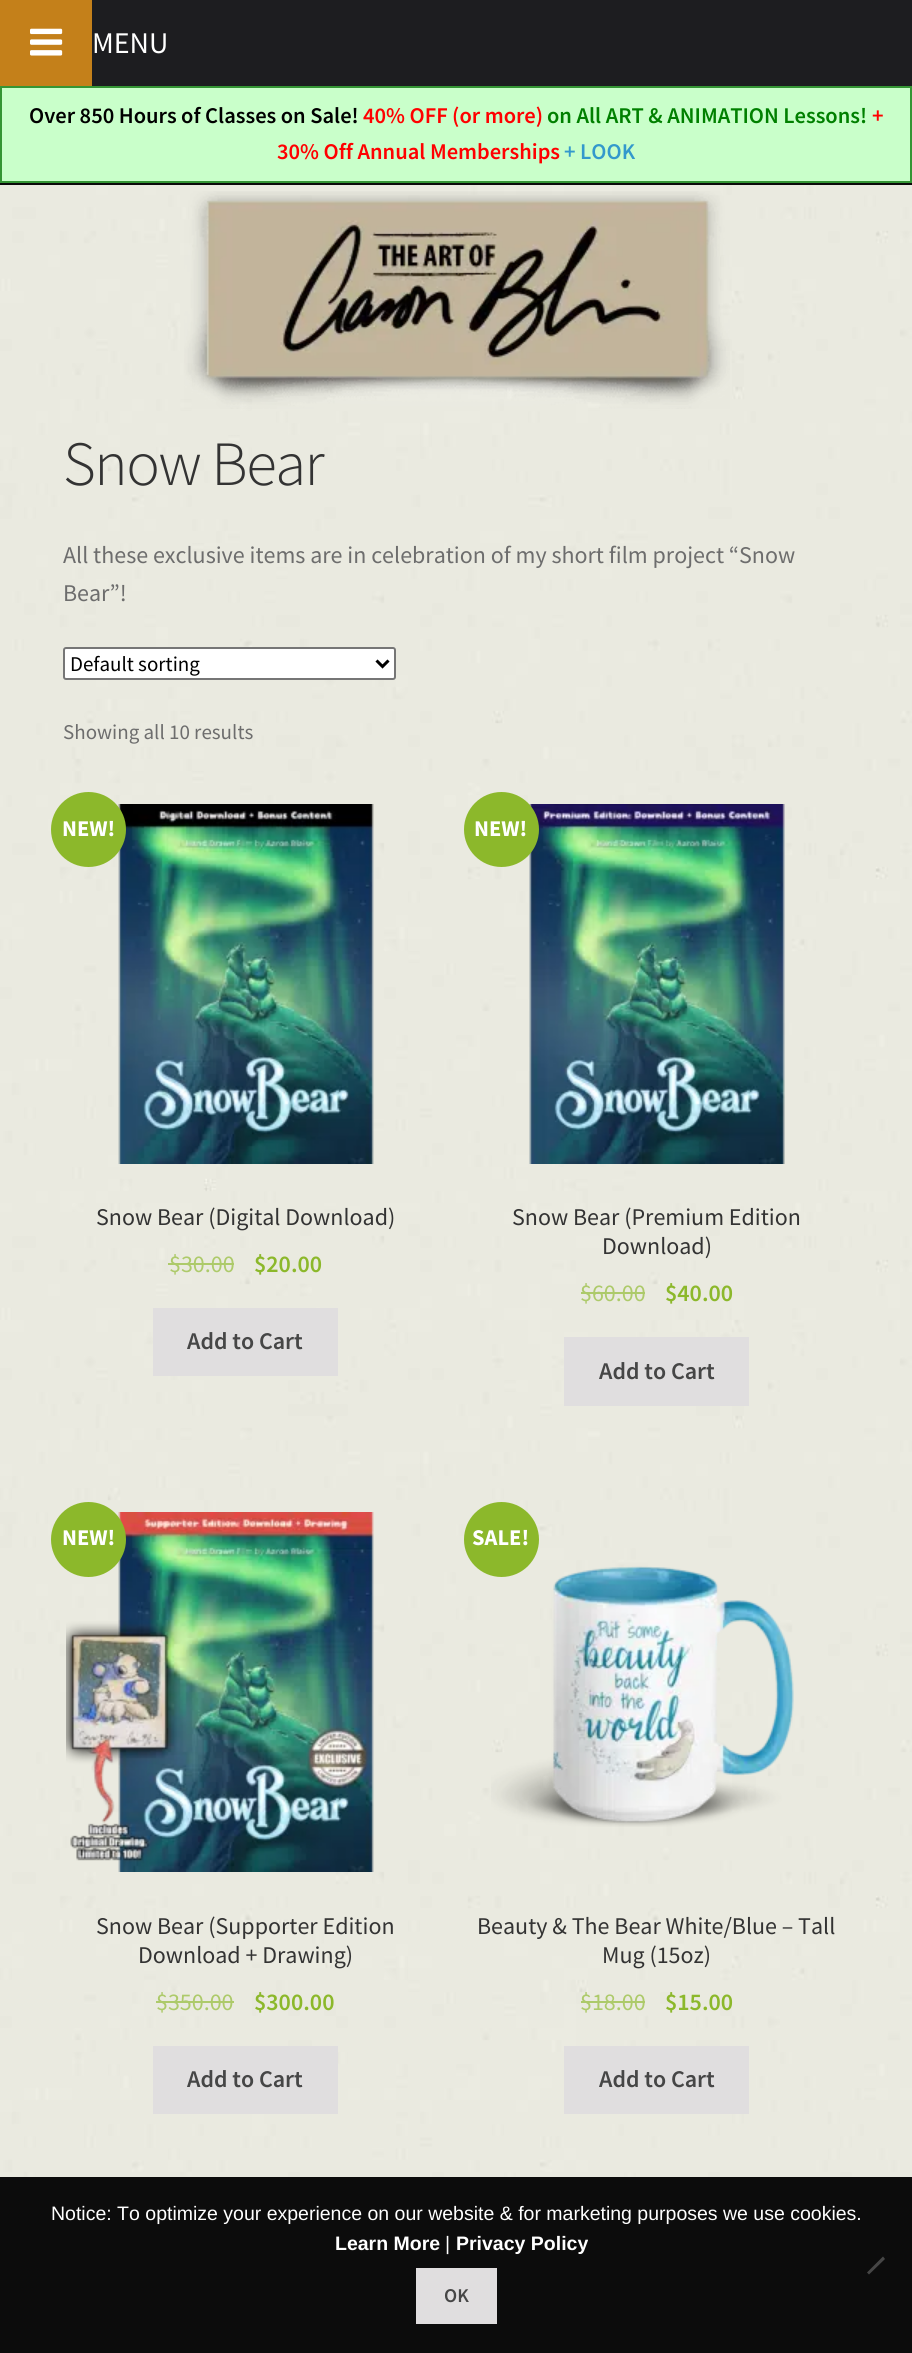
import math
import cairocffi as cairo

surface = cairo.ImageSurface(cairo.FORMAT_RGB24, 912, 2353)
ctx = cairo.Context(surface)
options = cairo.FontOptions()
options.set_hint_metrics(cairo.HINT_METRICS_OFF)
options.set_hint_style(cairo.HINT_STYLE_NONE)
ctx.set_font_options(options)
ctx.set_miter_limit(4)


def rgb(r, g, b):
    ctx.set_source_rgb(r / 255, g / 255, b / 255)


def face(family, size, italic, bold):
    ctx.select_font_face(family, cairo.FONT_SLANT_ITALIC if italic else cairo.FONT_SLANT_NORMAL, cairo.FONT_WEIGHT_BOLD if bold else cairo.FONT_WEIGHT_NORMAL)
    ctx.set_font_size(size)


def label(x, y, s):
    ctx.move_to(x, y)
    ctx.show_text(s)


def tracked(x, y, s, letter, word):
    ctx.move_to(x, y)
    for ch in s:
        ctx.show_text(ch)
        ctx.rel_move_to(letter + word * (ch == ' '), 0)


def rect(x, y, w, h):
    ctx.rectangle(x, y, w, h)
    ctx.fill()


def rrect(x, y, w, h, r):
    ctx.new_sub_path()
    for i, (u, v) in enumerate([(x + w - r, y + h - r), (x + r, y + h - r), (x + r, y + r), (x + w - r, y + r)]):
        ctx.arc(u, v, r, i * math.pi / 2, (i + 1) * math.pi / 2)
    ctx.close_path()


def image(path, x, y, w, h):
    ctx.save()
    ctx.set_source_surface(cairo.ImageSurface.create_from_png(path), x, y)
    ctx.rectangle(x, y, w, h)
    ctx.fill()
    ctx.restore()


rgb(201, 255, 202)
ctx.paint()
rgb(29, 29, 32)
rect(92, 0, 820, 86)
rgb(196, 128, 26)
rect(0, 0, 92, 86)
image('image0.png', 30, 28, 33, 28)
face('Source Sans Pro', 30, 0, 0)
rgb(255, 255, 255)
label(92, 53, 'MENU')
ctx.rectangle(1, 87, 910, 95)
rgb(52, 149, 52)
ctx.stroke()
face('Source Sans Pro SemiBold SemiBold', 22.5, 0, 0)
rgb(0, 0, 0)
label(29, 123, 'Over 850 Hours of Classes on Sale!')
rgb(255, 0, 0)
label(363, 123, '40% OFF (or more)')
rgb(0, 128, 0)
label(547, 123, 'on All ART & ANIMATION Lessons!')
rgb(255, 0, 0)
label(872, 123, '+')
label(277, 159, '30% Off Annual Memberships')
rgb(51, 153, 204)
label(564, 159, '+ LOOK')
image('image1.png', 0, 185, 912, 1992)
rgb(10, 10, 10)
rect(0, 183, 912, 2)
image('image2.png', 184, 191, 546, 218)
face('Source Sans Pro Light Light', 63, 0, 0)
rgb(51, 51, 51)
tracked(63, 485, 'Snow Bear', -1.5, 0)
face('Source Sans Pro', 24, 0, 0)
rgb(109, 109, 109)
label(63, 563, 'All these exclusive items are in celebration of my short film project “Snow')
label(63, 601, 'Bear”!')
rgb(255, 255, 255)
rrect(64, 648, 331, 31, 2)
ctx.fill_preserve()
rgb(118, 118, 118)
ctx.stroke()
ctx.new_path()
ctx.move_to(376.5, 660.5)
ctx.line_to(382.5, 666.5)
ctx.line_to(388.5, 660.5)
rgb(0, 0, 0)
ctx.set_line_width(3)
ctx.stroke()
face('Source Sans Pro', 21, 0, 0)
label(70, 671, 'Default sorting')
rgb(109, 109, 109)
label(63, 739, 'Showing all 10 results')
image('image3.png', 118, 804, 256, 360)
rgb(140, 184, 43)
ctx.arc(88.5, 829.5, 37.5, 0, 2 * math.pi)
ctx.fill()
face('Source Sans Pro', 22.5, 0, 1)
rgb(255, 255, 255)
label(62, 836, 'NEW!')
face('Source Sans Pro', 24, 0, 0)
rgb(51, 51, 51)
label(96, 1225, 'Snow Bear (Digital Download)')
rgb(173, 202, 106)
label(169, 1272, '$30.00')
rect(168, 1263, 66, 2)
face('Source Sans Pro SemiBold SemiBold', 24, 0, 0)
rgb(140, 184, 43)
label(254, 1272, '$20.00')
rgb(224, 222, 223)
rect(153, 1308, 185, 68)
rgb(70, 70, 70)
label(187, 1349, 'Add to Cart')
image('image4.png', 529, 804, 256, 360)
rgb(140, 184, 43)
ctx.arc(501.5, 829.5, 37.5, 0, 2 * math.pi)
ctx.fill()
face('Source Sans Pro', 22.5, 0, 1)
rgb(255, 255, 255)
label(474, 836, 'NEW!')
face('Source Sans Pro', 24, 0, 0)
rgb(51, 51, 51)
label(512, 1225, 'Snow Bear (Premium Edition')
label(602, 1254, 'Download)')
rgb(173, 202, 106)
label(580, 1301, '$60.00')
rect(581, 1292, 64, 2)
face('Source Sans Pro SemiBold SemiBold', 24, 0, 0)
rgb(140, 184, 43)
label(665, 1301, '$40.00')
rgb(224, 222, 223)
rect(564, 1337, 185, 69)
rgb(70, 70, 70)
label(599, 1379, 'Add to Cart')
image('image5.png', 66, 1512, 308, 360)
rgb(140, 184, 43)
ctx.arc(88.5, 1539.5, 37.5, 0, 2 * math.pi)
ctx.fill()
face('Source Sans Pro', 22.5, 0, 1)
rgb(255, 255, 255)
label(62, 1545, 'NEW!')
face('Source Sans Pro', 24, 0, 0)
rgb(51, 51, 51)
label(96, 1934, 'Snow Bear (Supporter Edition')
label(138, 1963, 'Download + Drawing)')
rgb(173, 202, 106)
label(156, 2010, '$350.00')
rect(156, 2001, 78, 2)
face('Source Sans Pro SemiBold SemiBold', 24, 0, 0)
rgb(140, 184, 43)
label(254, 2010, '$300.00')
rgb(224, 222, 223)
rect(153, 2046, 185, 68)
rgb(70, 70, 70)
label(187, 2087, 'Add to Cart')
image('image6.png', 491, 1566, 303, 261)
rgb(140, 184, 43)
ctx.arc(501.5, 1539.5, 37.5, 0, 2 * math.pi)
ctx.fill()
face('Source Sans Pro', 22.5, 0, 1)
rgb(255, 255, 255)
label(472, 1545, 'SALE!')
face('Source Sans Pro', 24, 0, 0)
rgb(51, 51, 51)
label(477, 1934, 'Beauty & The Bear White/Blue – Tall')
label(602, 1963, 'Mug (15oz)')
rgb(173, 202, 106)
label(580, 2010, '$18.00')
rect(581, 2001, 64, 2)
face('Source Sans Pro SemiBold SemiBold', 24, 0, 0)
rgb(140, 184, 43)
label(665, 2010, '$15.00')
rgb(224, 222, 223)
rect(564, 2046, 185, 68)
rgb(70, 70, 70)
label(599, 2087, 'Add to Cart')
rgb(12, 12, 12)
rect(0, 2177, 912, 176)
face('Liberation Sans', 19.5, 0, 0)
rgb(255, 255, 255)
label(51, 2220, 'Notice: To optimize your experience on our website & for marketing purposes we use cookies.')
face('Liberation Sans', 19.5, 0, 1)
label(335, 2250, 'Learn More')
face('Liberation Sans', 19.5, 0, 0)
label(445, 2250, '|')
face('Liberation Sans', 19.5, 0, 1)
label(456, 2250, 'Privacy Policy')
rgb(70, 70, 70)
ctx.new_path()
ctx.move_to(883, 2256.5)
ctx.line_to(885, 2259)
ctx.line_to(869, 2274.5)
ctx.line_to(867, 2272.5)
ctx.close_path()
ctx.fill()
rgb(224, 222, 223)
rect(416, 2268, 81, 56)
face('Source Sans Pro SemiBold SemiBold', 19.5, 0, 0)
rgb(70, 70, 70)
label(444, 2302, 'OK')
surface.write_to_png('render.png')
